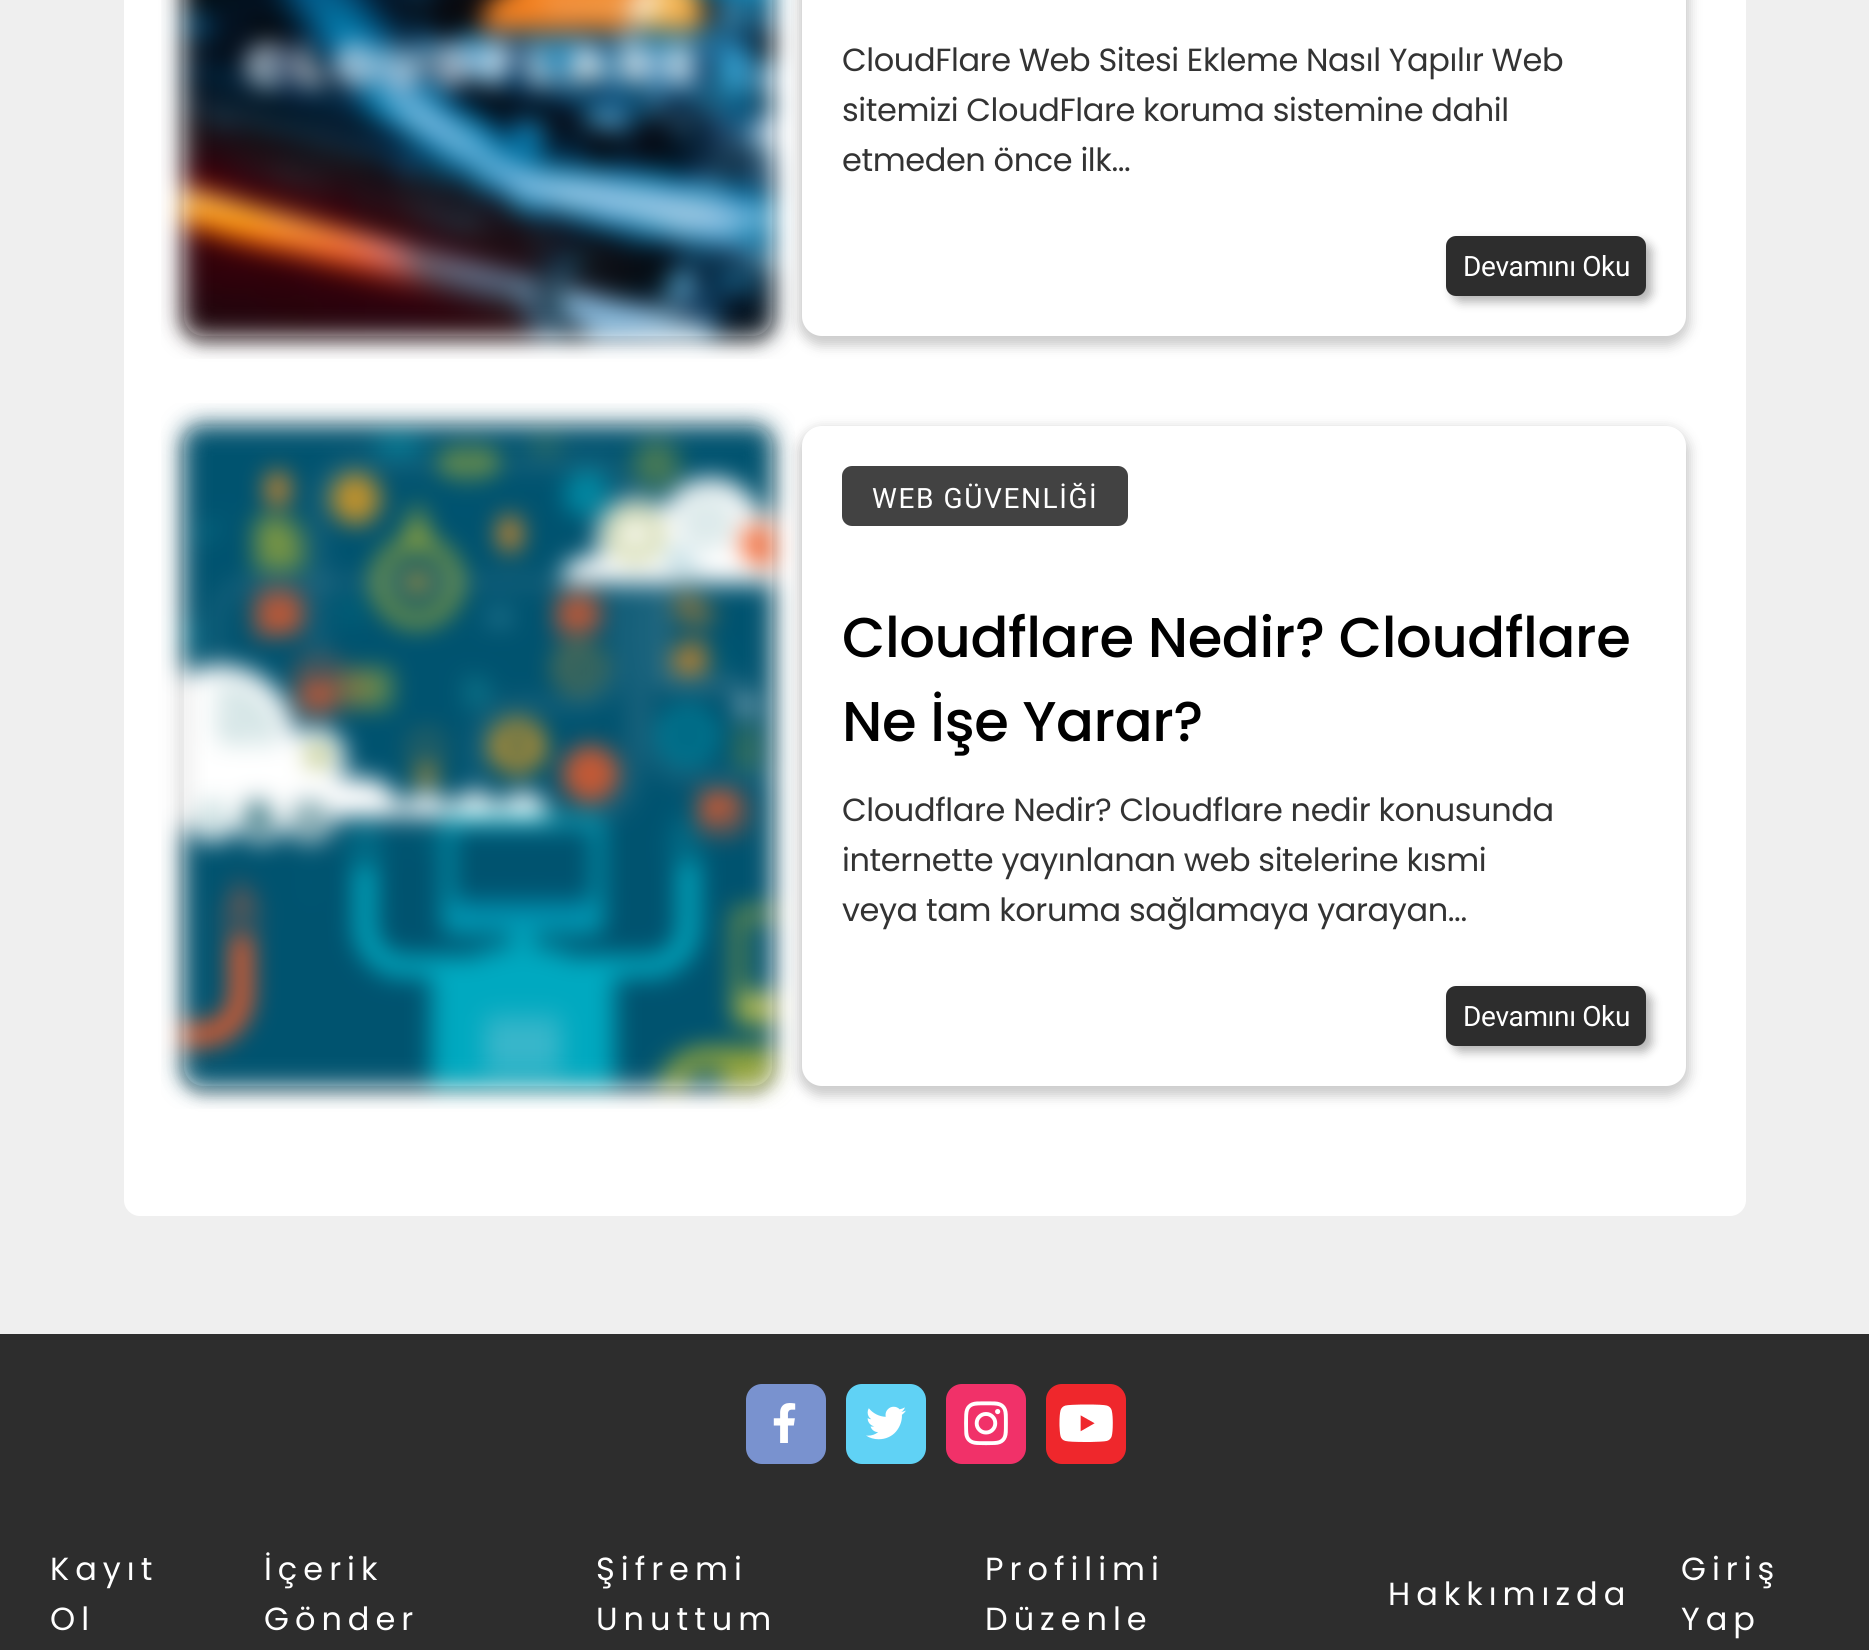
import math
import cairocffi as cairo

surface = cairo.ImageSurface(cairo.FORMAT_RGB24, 1869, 1650)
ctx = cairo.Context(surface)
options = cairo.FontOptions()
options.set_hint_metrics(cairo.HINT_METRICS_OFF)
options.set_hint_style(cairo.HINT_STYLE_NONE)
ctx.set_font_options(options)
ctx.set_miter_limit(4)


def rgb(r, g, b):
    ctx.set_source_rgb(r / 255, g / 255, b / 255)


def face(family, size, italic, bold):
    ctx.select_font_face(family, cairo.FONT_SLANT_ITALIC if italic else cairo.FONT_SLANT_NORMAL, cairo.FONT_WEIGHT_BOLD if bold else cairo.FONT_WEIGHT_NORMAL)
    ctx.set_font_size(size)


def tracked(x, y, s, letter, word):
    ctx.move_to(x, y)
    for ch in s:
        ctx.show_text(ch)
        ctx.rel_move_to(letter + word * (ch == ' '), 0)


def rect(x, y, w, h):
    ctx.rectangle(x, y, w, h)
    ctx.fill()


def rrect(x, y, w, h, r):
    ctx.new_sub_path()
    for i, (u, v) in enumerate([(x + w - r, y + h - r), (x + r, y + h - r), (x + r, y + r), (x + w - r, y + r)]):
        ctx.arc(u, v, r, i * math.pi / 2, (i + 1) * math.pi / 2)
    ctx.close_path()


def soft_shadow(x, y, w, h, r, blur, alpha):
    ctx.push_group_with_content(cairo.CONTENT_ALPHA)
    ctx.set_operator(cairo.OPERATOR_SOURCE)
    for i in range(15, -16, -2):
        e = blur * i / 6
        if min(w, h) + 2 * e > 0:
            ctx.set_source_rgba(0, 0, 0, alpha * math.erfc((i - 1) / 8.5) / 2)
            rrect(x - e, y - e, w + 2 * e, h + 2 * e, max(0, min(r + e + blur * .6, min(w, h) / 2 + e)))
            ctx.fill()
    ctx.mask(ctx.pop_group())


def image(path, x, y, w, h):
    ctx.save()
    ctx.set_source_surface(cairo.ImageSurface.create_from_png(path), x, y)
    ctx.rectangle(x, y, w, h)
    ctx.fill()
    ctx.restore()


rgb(239, 239, 239)
ctx.paint()
rgb(255, 255, 255)
rrect(124, -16, 1622, 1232, 16)
ctx.fill()
ctx.save()
ctx.set_fill_rule(cairo.FILL_RULE_EVEN_ODD)
ctx.new_path()
ctx.move_to(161, 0)
ctx.line_to(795, 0)
ctx.line_to(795, 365)
ctx.line_to(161, 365)
ctx.close_path()
ctx.move_to(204, -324)
ctx.line_to(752, -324)
ctx.curve_to(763, -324, 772, -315, 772, -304)
ctx.line_to(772, 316)
ctx.curve_to(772, 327, 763, 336, 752, 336)
ctx.line_to(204, 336)
ctx.curve_to(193, 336, 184, 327, 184, 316)
ctx.line_to(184, -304)
ctx.curve_to(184, -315, 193, -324, 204, -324)
ctx.close_path()
ctx.clip()
rgb(0, 0, 0)
soft_shadow(180, -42, 596, 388, 24, 6, 0.2)
ctx.restore()
rgb(0, 0, 0)
soft_shadow(798, -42, 892, 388, 24, 6, 0.2)
rgb(255, 255, 255)
rrect(802, -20, 884, 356, 20)
ctx.fill()
rgb(212, 212, 212)
soft_shadow(184, -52, 588, 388, 16, 12, 1)
image('image0.png', 161, 0, 634, 359)
face('Poppins', 32, 0, 0)
rgb(51, 51, 51)
tracked(842, 71, 'CloudFlare Web Sitesi Ekleme Nasıl Yapılır Web', -0.4, 0)
tracked(842, 121, 'sitemizi CloudFlare koruma sistemine dahil', -0.4, 0)
tracked(842, 171, 'etmeden önce ilk...', -0.4, 0)
rgb(0, 0, 0)
soft_shadow(1452, 242, 200, 60, 10, 5, 0.3)
rgb(45, 45, 45)
rrect(1446, 236, 200, 60, 10)
ctx.fill()
face('Roboto', 28, 0, 0)
rgb(255, 255, 255)
tracked(1463, 276, 'Devamını Oku', -0.4, 0)
ctx.save()
ctx.set_fill_rule(cairo.FILL_RULE_EVEN_ODD)
ctx.new_path()
ctx.move_to(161, 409)
ctx.line_to(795, 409)
ctx.line_to(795, 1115)
ctx.line_to(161, 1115)
ctx.close_path()
ctx.move_to(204, 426)
ctx.line_to(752, 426)
ctx.curve_to(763, 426, 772, 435, 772, 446)
ctx.line_to(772, 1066)
ctx.curve_to(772, 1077, 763, 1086, 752, 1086)
ctx.line_to(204, 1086)
ctx.curve_to(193, 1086, 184, 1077, 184, 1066)
ctx.line_to(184, 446)
ctx.curve_to(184, 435, 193, 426, 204, 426)
ctx.close_path()
ctx.clip()
rgb(0, 0, 0)
soft_shadow(180, 428, 596, 668, 24, 6, 0.2)
ctx.restore()
rgb(0, 0, 0)
soft_shadow(798, 428, 892, 668, 24, 6, 0.2)
rgb(255, 255, 255)
rrect(802, 426, 884, 660, 20)
ctx.fill()
rgb(212, 212, 212)
soft_shadow(184, 426, 588, 660, 16, 12, 1)
image('image1.png', 161, 403, 634, 706)
rgb(66, 66, 66)
rrect(842, 466, 286, 60, 10)
ctx.fill()
rgb(255, 255, 255)
tracked(872, 508, 'WEB GÜVENLİĞİ', 1.6, 0)
face('Poppins Medium', 56, 0, 0)
rgb(0, 0, 0)
tracked(842, 657, 'Cloudflare Nedir? Cloudflare', -0.4, 0)
tracked(842, 741, 'Ne İşe Yarar?', -0.4, 0)
face('Poppins', 32, 0, 0)
rgb(51, 51, 51)
tracked(842, 821, 'Cloudflare Nedir? Cloudflare nedir konusunda', -0.4, 0)
tracked(842, 871, 'internette yayınlanan web sitelerine kısmi', -0.4, 0)
tracked(842, 921, 'veya tam koruma sağlamaya yarayan...', -0.4, 0)
rgb(0, 0, 0)
soft_shadow(1452, 992, 200, 60, 10, 5, 0.3)
rgb(45, 45, 45)
rrect(1446, 986, 200, 60, 10)
ctx.fill()
face('Roboto', 28, 0, 0)
rgb(255, 255, 255)
tracked(1463, 1026, 'Devamını Oku', -0.4, 0)
rgb(45, 45, 45)
rect(0, 1334, 1869, 316)
rgb(121, 146, 207)
rrect(746, 1384, 80, 80, 16)
ctx.fill()
image('image2.png', 773, 1403, 23, 40)
rgb(96, 210, 245)
rrect(846, 1384, 80, 80, 16)
ctx.fill()
image('image3.png', 866, 1406, 40, 34)
rgb(241, 49, 105)
rrect(946, 1384, 80, 80, 16)
ctx.fill()
image('image4.png', 964, 1401, 44, 45)
rgb(239, 39, 44)
rrect(1046, 1384, 80, 80, 16)
ctx.fill()
image('image5.png', 1059, 1404, 54, 38)
face('Poppins', 32, 0, 0)
rgb(255, 255, 255)
tracked(50, 1580, 'Kayıt', 6, 0)
tracked(50, 1630, 'Ol', 6, 0)
tracked(264, 1580, 'İçerik', 6, 0)
tracked(264, 1630, 'Gönder', 6, 0)
tracked(596, 1580, 'Şifremi', 6, 0)
tracked(596, 1630, 'Unuttum', 6, 0)
tracked(985, 1580, 'Profilimi', 6, 0)
tracked(985, 1630, 'Düzenle', 6, 0)
tracked(1388, 1605, 'Hakkımızda', 6, 0)
tracked(1681, 1580, 'Giriş', 6, 0)
tracked(1681, 1630, 'Yap', 6, 0)
surface.write_to_png('render.png')
